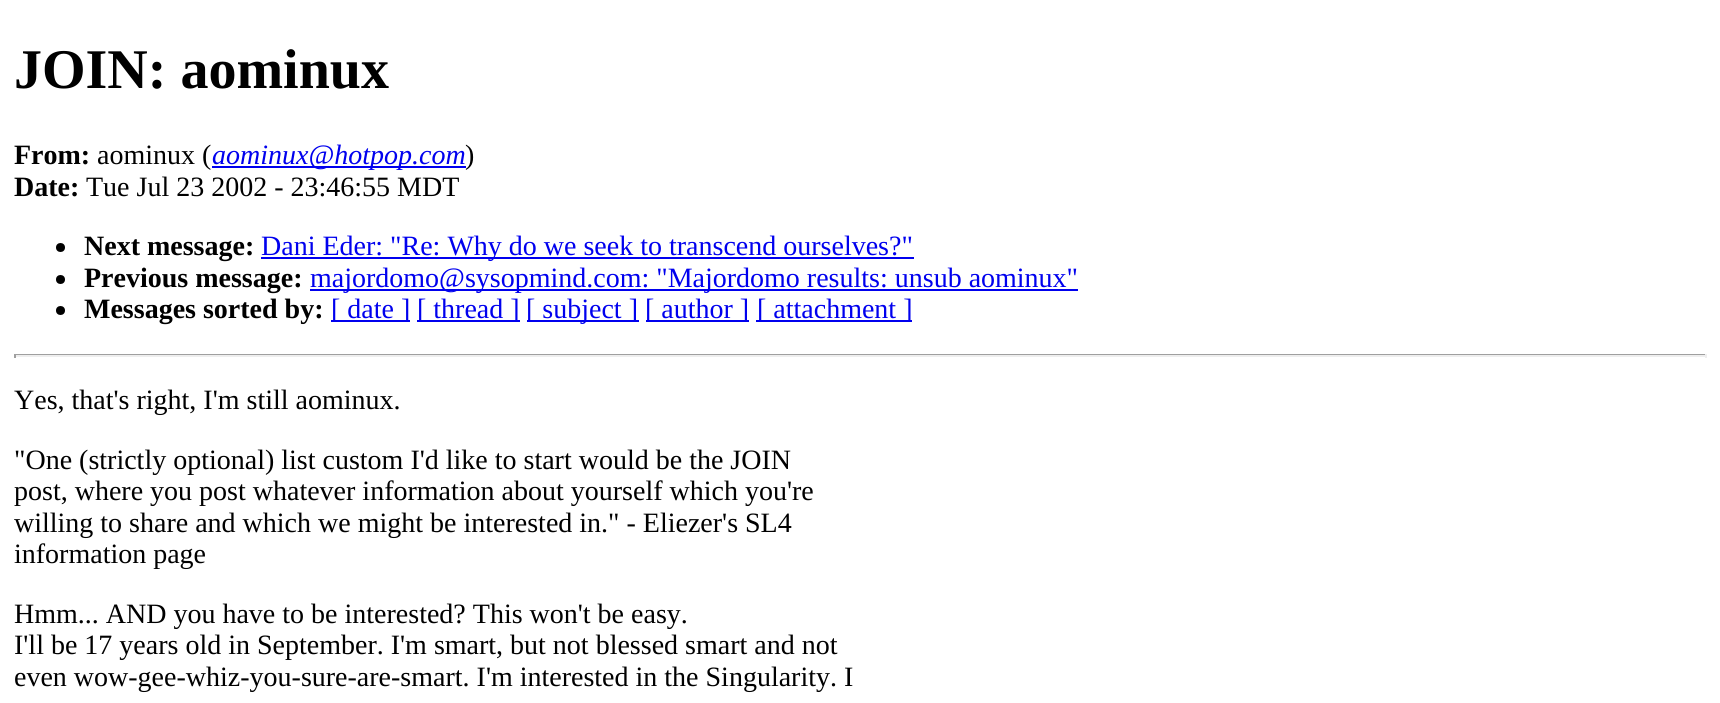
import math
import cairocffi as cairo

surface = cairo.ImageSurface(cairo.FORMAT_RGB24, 1720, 703)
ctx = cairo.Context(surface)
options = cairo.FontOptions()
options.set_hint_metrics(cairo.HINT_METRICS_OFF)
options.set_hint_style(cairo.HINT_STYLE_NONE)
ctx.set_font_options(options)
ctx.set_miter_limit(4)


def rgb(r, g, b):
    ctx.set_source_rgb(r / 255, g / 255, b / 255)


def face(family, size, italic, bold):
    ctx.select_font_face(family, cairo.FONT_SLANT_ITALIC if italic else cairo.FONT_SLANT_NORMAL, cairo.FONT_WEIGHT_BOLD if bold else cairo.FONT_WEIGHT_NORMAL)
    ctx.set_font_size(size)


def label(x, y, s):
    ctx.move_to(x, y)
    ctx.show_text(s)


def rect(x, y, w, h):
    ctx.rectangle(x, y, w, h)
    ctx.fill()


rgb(255, 255, 255)
ctx.paint()
face('Liberation Serif', 56, 0, 1)
rgb(0, 0, 0)
label(14, 88, 'JOIN: aominux')
face('Liberation Serif', 28, 0, 1)
label(14, 164, 'From:')
face('Liberation Serif', 28, 0, 0)
label(97, 164, 'aominux (')
rgb(0, 0, 238)
rect(212, 166, 254, 2)
face('Liberation Serif', 28, 1, 0)
label(212, 164, 'aominux@hotpop.com')
face('Liberation Serif', 28, 0, 0)
rgb(0, 0, 0)
label(465, 164, ')')
face('Liberation Serif', 28, 0, 1)
label(14, 196, 'Date:')
face('Liberation Serif', 28, 0, 0)
label(86, 196, 'Tue Jul 23 2002 - 23:46:55 MDT')
ctx.new_path()
ctx.arc(60.5, 247.5, 4.5, 0, 2 * math.pi)
ctx.fill()
face('Liberation Serif', 28, 0, 1)
label(84, 255, 'Next message:')
rgb(0, 0, 238)
rect(261, 257, 653, 2)
face('Liberation Serif', 28, 0, 0)
label(261, 255, 'Dani Eder: "Re: Why do we seek to transcend ourselves?"')
rgb(0, 0, 0)
ctx.new_path()
ctx.arc(60.5, 279.5, 4.5, 0, 2 * math.pi)
ctx.fill()
face('Liberation Serif', 28, 0, 1)
label(84, 287, 'Previous message:')
rgb(0, 0, 238)
rect(310, 289, 768, 2)
face('Liberation Serif', 28, 0, 0)
label(310, 287, 'majordomo@sysopmind.com: "Majordomo results: unsub aominux"')
rgb(0, 0, 0)
ctx.new_path()
ctx.arc(60.5, 310.5, 4.5, 0, 2 * math.pi)
ctx.fill()
face('Liberation Serif', 28, 0, 1)
label(84, 318, 'Messages sorted by:')
rgb(0, 0, 238)
rect(331, 320, 79, 2)
face('Liberation Serif', 28, 0, 0)
label(331, 318, '[ date ]')
rect(417, 320, 103, 2)
label(417, 318, '[ thread ]')
rect(527, 320, 112, 2)
label(526, 318, '[ subject ]')
rect(646, 320, 103, 2)
label(645, 318, '[ author ]')
rect(756, 320, 156, 2)
label(757, 318, '[ attachment ]')
rgb(159, 159, 159)
rect(14, 354, 1692, 1)
rgb(238, 238, 238)
rect(1705, 354, 2, 4)
rect(14, 355, 1692, 2)
rgb(159, 159, 159)
rect(14, 354, 2, 4)
rgb(0, 0, 0)
label(14, 409, 'Yes, that\'s right, I\'m still aominux.')
label(14, 469, '"One (strictly optional) list custom I\'d like to start would be the JOIN')
label(14, 500, 'post, where you post whatever information about yourself which you\'re')
label(14, 532, 'willing to share and which we might be interested in." - Eliezer\'s SL4')
label(14, 563, 'information page')
label(14, 623, 'Hmm... AND you have to be interested? This won\'t be easy.')
label(14, 654, 'I\'ll be 17 years old in September. I\'m smart, but not blessed smart and not')
label(14, 686, 'even wow-gee-whiz-you-sure-are-smart. I\'m interested in the Singularity. I')
surface.write_to_png('render.png')
